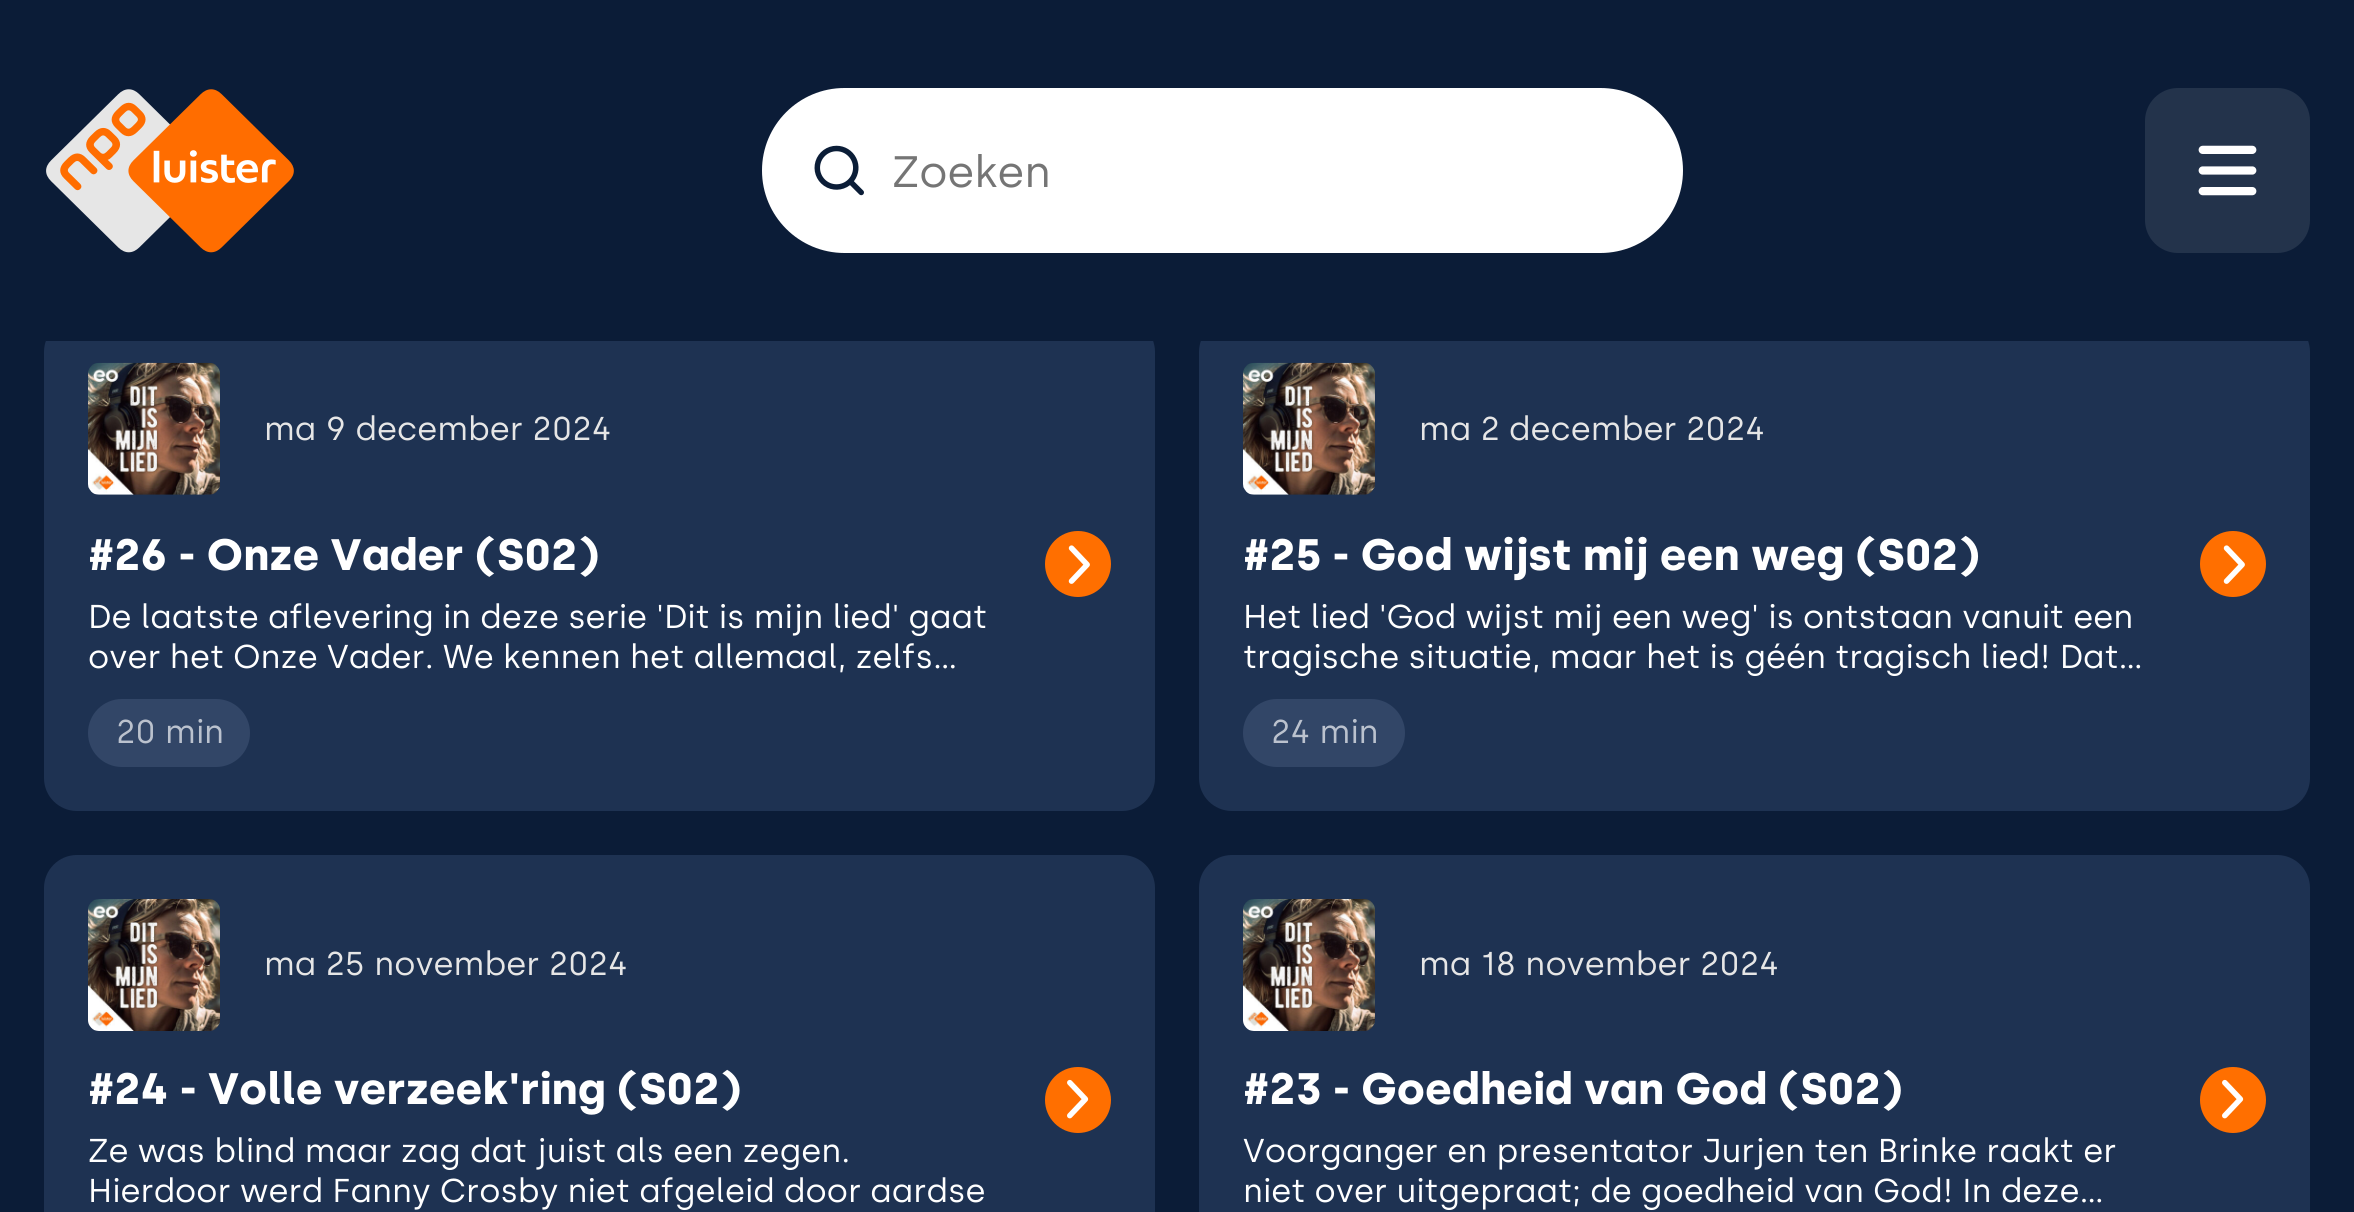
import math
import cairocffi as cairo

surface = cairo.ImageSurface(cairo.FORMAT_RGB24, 2354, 1212)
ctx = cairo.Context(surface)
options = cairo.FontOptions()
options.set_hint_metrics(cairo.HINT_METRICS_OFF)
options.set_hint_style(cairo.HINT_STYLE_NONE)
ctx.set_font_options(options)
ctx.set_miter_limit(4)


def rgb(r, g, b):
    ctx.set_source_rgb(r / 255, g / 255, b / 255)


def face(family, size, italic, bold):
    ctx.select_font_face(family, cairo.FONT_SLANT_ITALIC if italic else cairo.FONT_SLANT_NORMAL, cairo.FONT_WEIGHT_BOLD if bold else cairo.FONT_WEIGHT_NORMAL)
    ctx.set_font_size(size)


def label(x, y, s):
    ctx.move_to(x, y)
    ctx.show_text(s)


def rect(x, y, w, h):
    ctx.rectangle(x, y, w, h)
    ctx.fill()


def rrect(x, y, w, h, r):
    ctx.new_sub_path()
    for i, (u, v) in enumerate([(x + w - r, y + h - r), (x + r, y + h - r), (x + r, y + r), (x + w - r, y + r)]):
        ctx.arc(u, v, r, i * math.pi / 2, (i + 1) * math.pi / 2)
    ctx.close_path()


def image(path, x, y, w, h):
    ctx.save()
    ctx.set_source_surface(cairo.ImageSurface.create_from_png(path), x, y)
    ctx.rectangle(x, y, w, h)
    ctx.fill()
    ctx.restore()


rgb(11, 28, 55)
ctx.paint()
rgb(30, 50, 82)
rrect(44, 319, 1111, 492, 33)
ctx.fill()
rrect(1199, 319, 1111, 492, 33)
ctx.fill()
rgb(11, 28, 55)
rect(46, 319, 2262, 22)
image('image0.png', 46, 89, 248, 164)
rgb(255, 255, 255)
rrect(762, 88, 921, 165, 82.5)
ctx.fill()
image('image1.png', 814, 145, 50, 51)
face('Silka', 44, 0, 0)
rgb(117, 117, 117)
label(892, 187, 'Zoeken')
rgb(35, 51, 75)
rrect(2145, 88, 165, 165, 33)
ctx.fill()
image('image2.png', 2198, 145, 59, 51)
image('image3.png', 88, 362, 132, 133)
face('Silka', 33, 0, 0)
rgb(230, 230, 230)
label(264, 440, 'ma 9 december 2024')
face('Silka', 44, 0, 1)
rgb(255, 255, 255)
label(88, 570, '#26 - Onze Vader (S02)')
face('Silka', 33, 0, 0)
label(88, 628, 'De laatste aflevering in deze serie \'Dit is mijn lied\' gaat')
label(88, 668, 'over het Onze Vader. We kennen het allemaal, zelfs…')
rgb(50, 70, 103)
rrect(88, 699, 162, 68, 34)
ctx.fill()
rgb(187, 194, 206)
label(116, 743, '20 min')
rgb(255, 111, 0)
ctx.new_path()
ctx.arc(1078, 564, 33, 0, 2 * math.pi)
ctx.fill()
image('image4.png', 1068, 545, 22, 39)
image('image5.png', 1243, 362, 132, 133)
rgb(230, 230, 230)
label(1419, 440, 'ma 2 december 2024')
face('Silka', 44, 0, 1)
rgb(255, 255, 255)
label(1243, 570, '#25 - God wijst mij een weg (S02)')
face('Silka', 33, 0, 0)
label(1243, 628, 'Het lied \'God wijst mij een weg\' is ontstaan vanuit een')
label(1243, 668, 'tragische situatie, maar het is géén tragisch lied! Dat…')
rgb(50, 70, 103)
rrect(1243, 699, 162, 68, 34)
ctx.fill()
rgb(187, 194, 206)
label(1271, 743, '24 min')
rgb(255, 111, 0)
ctx.new_path()
ctx.arc(2233, 564, 33, 0, 2 * math.pi)
ctx.fill()
image('image4.png', 2223, 545, 22, 39)
rgb(30, 50, 82)
rrect(44, 855, 1111, 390, 33)
ctx.fill()
image('image6.png', 88, 899, 132, 132)
rgb(230, 230, 230)
label(264, 975, 'ma 25 november 2024')
face('Silka', 44, 0, 1)
rgb(255, 255, 255)
label(88, 1104, '#24 - Volle verzeek\'ring (S02)')
face('Silka', 33, 0, 0)
label(88, 1162, 'Ze was blind maar zag dat juist als een zegen.')
label(88, 1202, 'Hierdoor werd Fanny Crosby niet afgeleid door aardse')
rgb(255, 111, 0)
ctx.new_path()
ctx.arc(1078, 1100, 33, 0, 2 * math.pi)
ctx.fill()
image('image7.png', 1067, 1079, 22, 40)
rgb(30, 50, 82)
rrect(1199, 855, 1111, 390, 33)
ctx.fill()
image('image8.png', 1243, 899, 132, 132)
rgb(230, 230, 230)
label(1419, 975, 'ma 18 november 2024')
face('Silka', 44, 0, 1)
rgb(255, 255, 255)
label(1243, 1104, '#23 - Goedheid van God (S02)')
face('Silka', 33, 0, 0)
label(1243, 1162, 'Voorganger en presentator Jurjen ten Brinke raakt er')
label(1243, 1202, 'niet over uitgepraat; de goedheid van God! In deze…')
rgb(255, 111, 0)
ctx.new_path()
ctx.arc(2233, 1100, 33, 0, 2 * math.pi)
ctx.fill()
image('image7.png', 2222, 1079, 22, 40)
surface.write_to_png('render.png')
